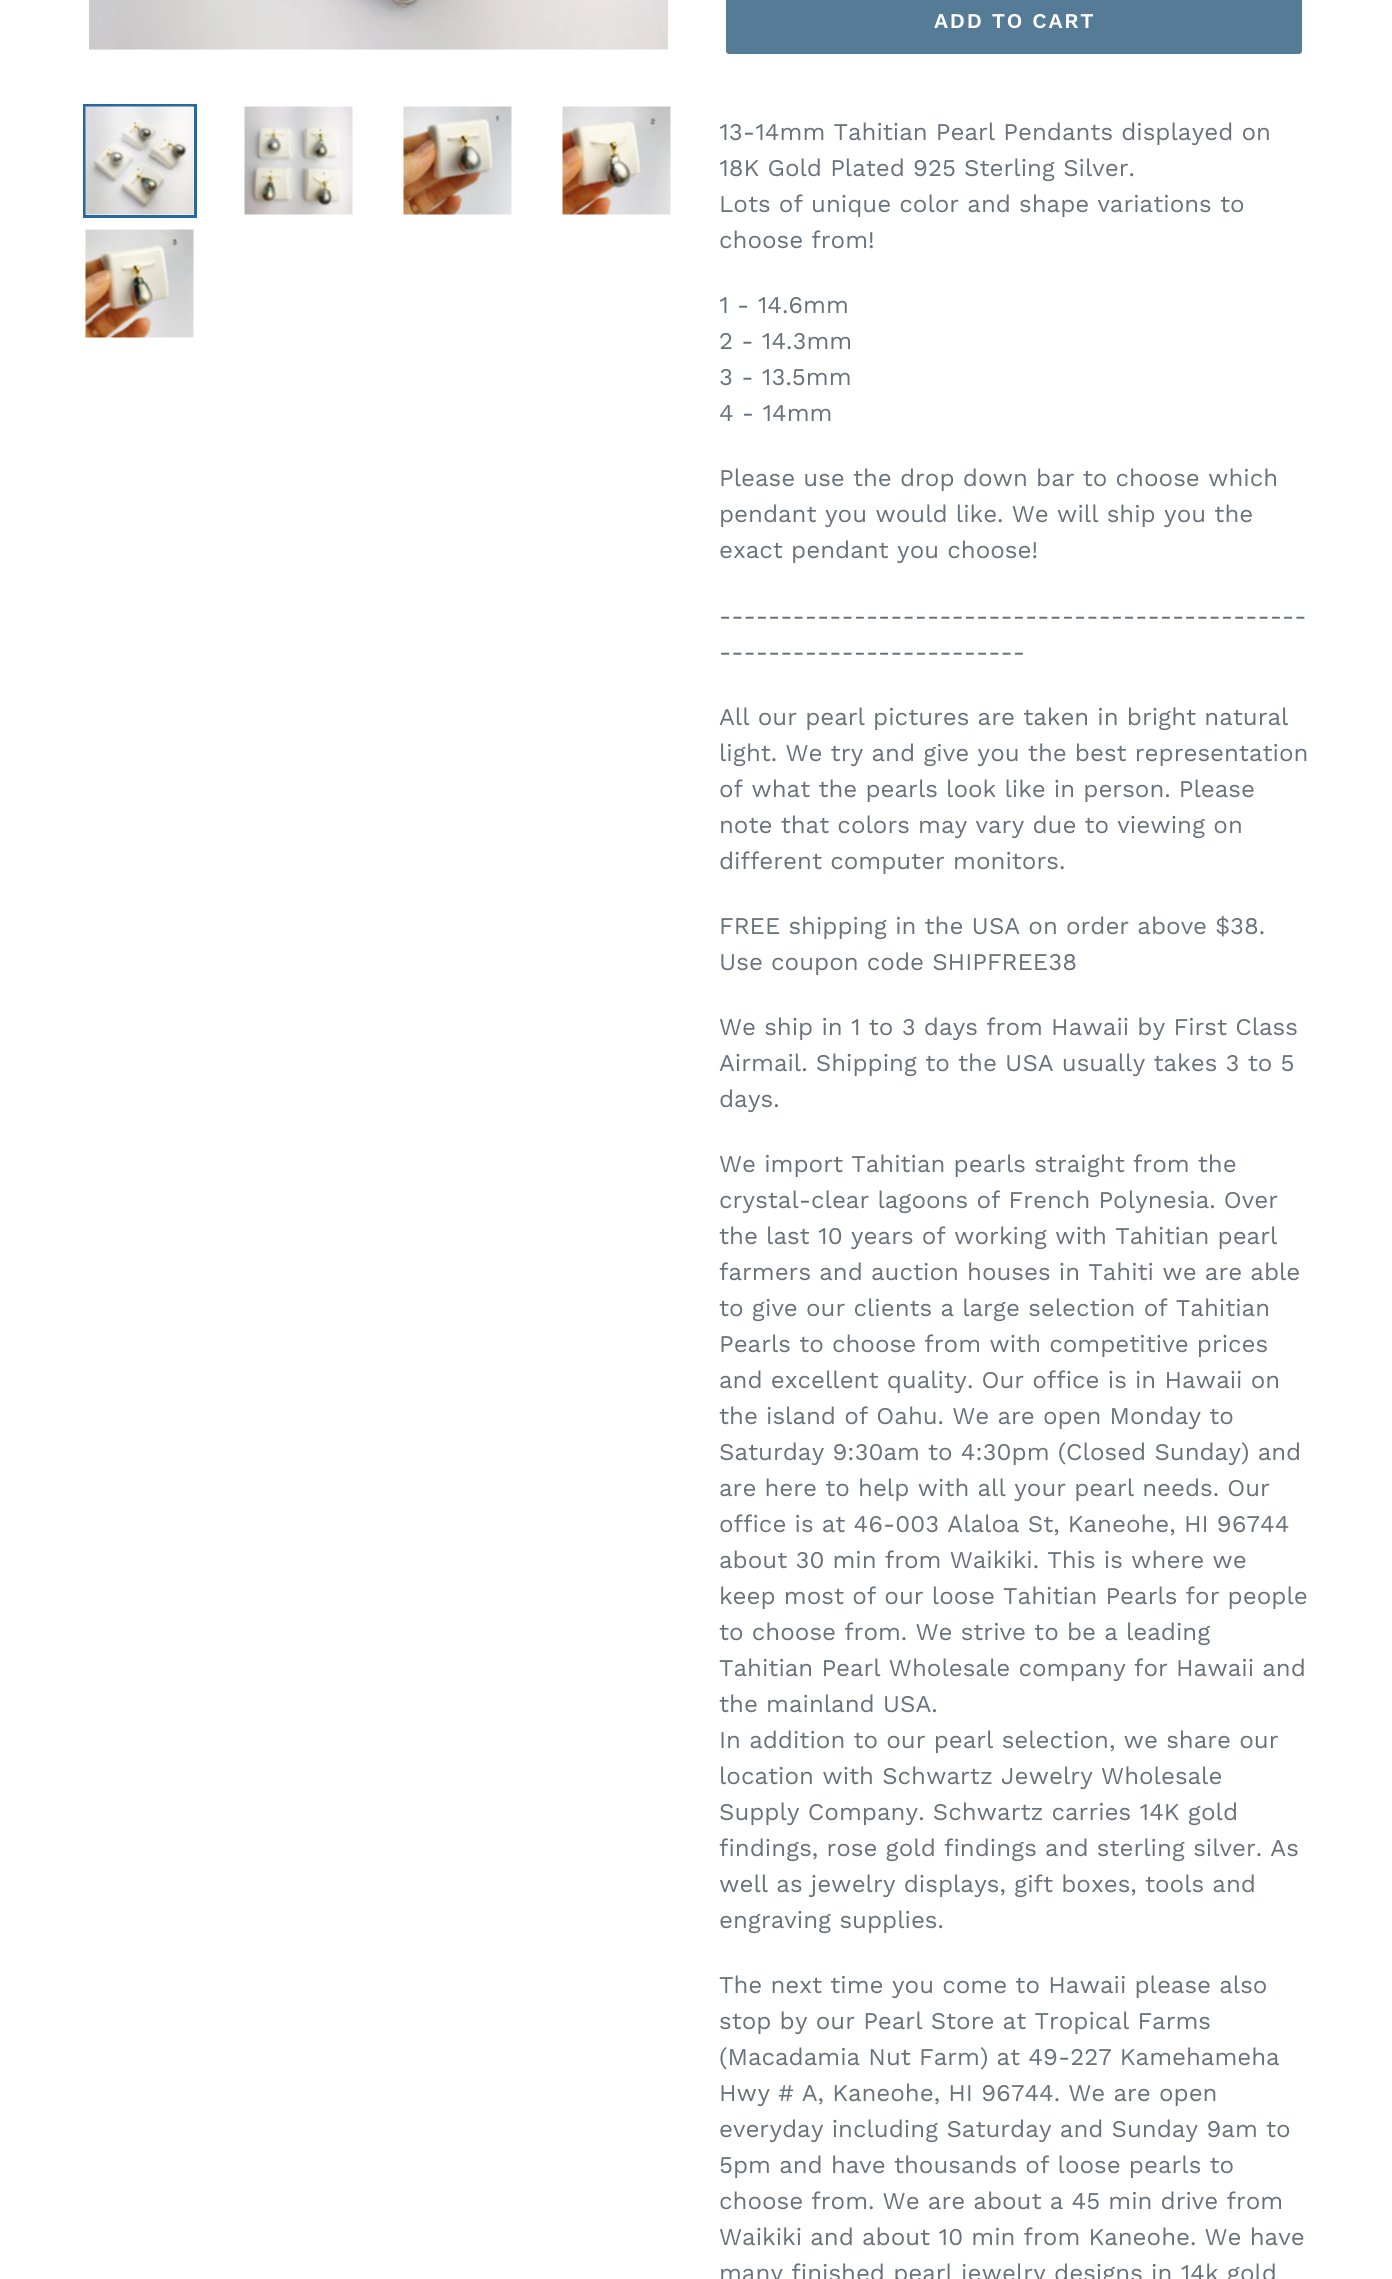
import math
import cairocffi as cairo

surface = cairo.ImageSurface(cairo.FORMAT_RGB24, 1392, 2279)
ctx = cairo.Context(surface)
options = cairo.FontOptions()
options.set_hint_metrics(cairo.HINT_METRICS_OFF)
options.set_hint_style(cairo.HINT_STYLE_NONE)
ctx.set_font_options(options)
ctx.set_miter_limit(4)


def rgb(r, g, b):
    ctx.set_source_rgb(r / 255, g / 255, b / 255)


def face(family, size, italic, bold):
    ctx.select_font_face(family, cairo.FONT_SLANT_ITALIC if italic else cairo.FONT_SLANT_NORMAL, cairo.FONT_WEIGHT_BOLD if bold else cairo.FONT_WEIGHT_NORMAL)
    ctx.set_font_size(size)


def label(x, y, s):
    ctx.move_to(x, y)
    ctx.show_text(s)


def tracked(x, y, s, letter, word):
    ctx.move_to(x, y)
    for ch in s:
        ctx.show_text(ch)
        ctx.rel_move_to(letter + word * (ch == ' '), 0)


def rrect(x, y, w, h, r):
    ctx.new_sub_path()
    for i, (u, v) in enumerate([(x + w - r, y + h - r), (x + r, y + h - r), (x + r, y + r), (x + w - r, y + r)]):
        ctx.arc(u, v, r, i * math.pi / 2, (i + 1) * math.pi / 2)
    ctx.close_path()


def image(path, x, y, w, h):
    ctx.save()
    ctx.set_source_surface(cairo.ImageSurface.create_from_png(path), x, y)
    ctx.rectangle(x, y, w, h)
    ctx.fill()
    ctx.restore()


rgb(255, 255, 255)
ctx.paint()
image('image0.png', 89, 0, 579, 50)
ctx.rectangle(84.5, 105.5, 111, 111)
rgb(40, 105, 157)
ctx.set_line_width(3)
ctx.stroke()
image('image1.png', 85, 106, 109, 109)
image('image2.png', 244, 106, 109, 109)
image('image3.png', 403, 106, 109, 109)
image('image4.png', 562, 106, 109, 109)
image('image5.png', 85, 229, 109, 109)
rgb(85, 123, 151)
rrect(726, -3, 576, 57, 3)
ctx.fill()
face('Work Sans SemiBold', 21, 0, 0)
rgb(255, 255, 255)
tracked(934, 28, 'ADD TO CART', 1.75, 0)
face('Work Sans', 24, 0, 0)
rgb(105, 114, 123)
label(719, 140, '13-14mm Tahitian Pearl Pendants displayed on')
label(719, 176, '18K Gold Plated 925 Sterling Silver.')
label(719, 212, 'Lots of unique color and shape variations to')
label(719, 248, 'choose from!')
label(719, 313, '1 - 14.6mm')
label(719, 349, '2 - 14.3mm')
label(719, 385, '3 - 13.5mm')
label(719, 421, '4 - 14mm')
label(719, 486, 'Please use the drop down bar to choose which')
label(719, 522, 'pendant you would like. We will ship you the')
label(719, 558, 'exact pendant you choose!')
label(719, 624, '------------------------------------------------')
label(719, 660, '-------------------------')
label(719, 725, 'All our pearl pictures are taken in bright natural')
label(719, 761, 'light. We try and give you the best representation')
label(719, 797, 'of what the pearls look like in person. Please')
label(719, 833, 'note that colors may vary due to viewing on')
label(719, 869, 'different computer monitors.')
label(719, 934, 'FREE shipping in the USA on order above $38.')
label(719, 970, 'Use coupon code SHIPFREE38')
label(719, 1035, 'We ship in 1 to 3 days from Hawaii by First Class')
label(719, 1071, 'Airmail. Shipping to the USA usually takes 3 to 5')
label(719, 1107, 'days.')
label(719, 1172, 'We import Tahitian pearls straight from the')
label(719, 1208, 'crystal-clear lagoons of French Polynesia. Over')
label(719, 1244, 'the last 10 years of working with Tahitian pearl')
label(719, 1280, 'farmers and auction houses in Tahiti we are able')
label(719, 1316, 'to give our clients a large selection of Tahitian')
label(719, 1352, 'Pearls to choose from with competitive prices')
label(719, 1388, 'and excellent quality. Our office is in Hawaii on')
label(719, 1424, 'the island of Oahu. We are open Monday to')
label(719, 1460, 'Saturday 9:30am to 4:30pm (Closed Sunday) and')
label(719, 1496, 'are here to help with all your pearl needs. Our')
label(719, 1532, 'office is at 46-003 Alaloa St, Kaneohe, HI 96744')
label(719, 1568, 'about 30 min from Waikiki. This is where we')
label(719, 1604, 'keep most of our loose Tahitian Pearls for people')
label(719, 1640, 'to choose from. We strive to be a leading')
label(719, 1676, 'Tahitian Pearl Wholesale company for Hawaii and')
label(719, 1712, 'the mainland USA.')
label(719, 1748, 'In addition to our pearl selection, we share our')
label(719, 1784, 'location with Schwartz Jewelry Wholesale')
label(719, 1820, 'Supply Company. Schwartz carries 14K gold')
label(719, 1856, 'findings, rose gold findings and sterling silver. As')
label(719, 1892, 'well as jewelry displays, gift boxes, tools and')
label(719, 1928, 'engraving supplies.')
label(719, 1993, 'The next time you come to Hawaii please also')
label(719, 2029, 'stop by our Pearl Store at Tropical Farms')
label(719, 2065, '(Macadamia Nut Farm) at 49-227 Kamehameha')
label(719, 2101, 'Hwy # A, Kaneohe, HI 96744. We are open')
label(719, 2137, 'everyday including Saturday and Sunday 9am to')
label(719, 2173, '5pm and have thousands of loose pearls to')
label(719, 2209, 'choose from. We are about a 45 min drive from')
label(719, 2245, 'Waikiki and about 10 min from Kaneohe. We have')
label(719, 2281, 'many finished pearl jewelry designs in 14k gold')
surface.write_to_png('render.png')
